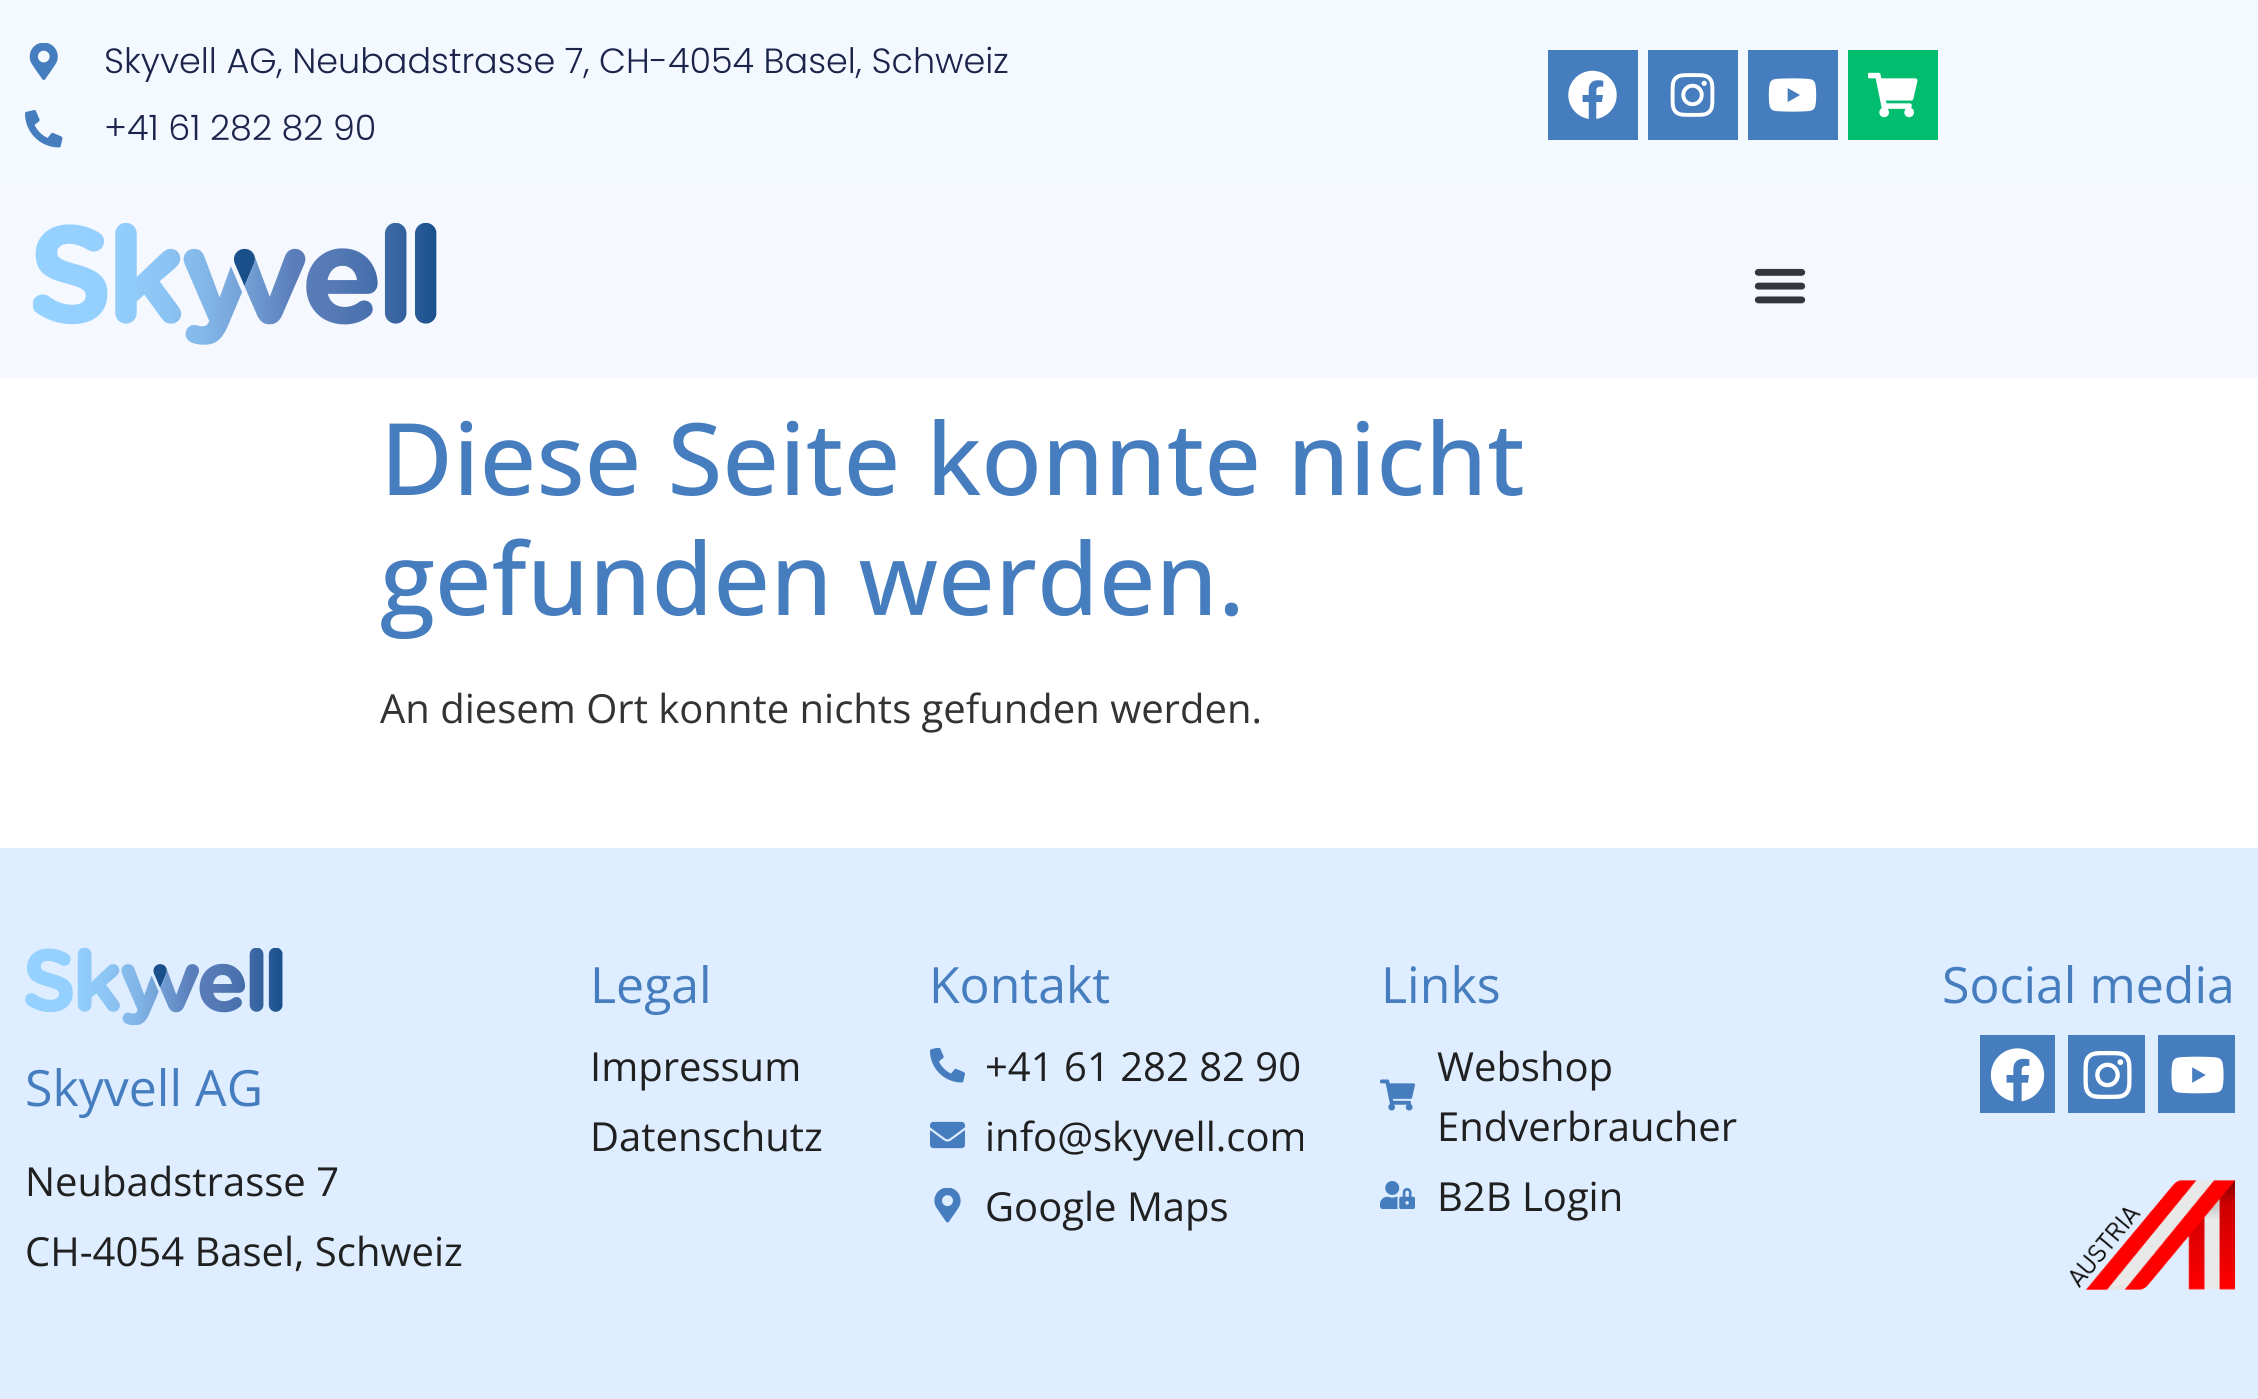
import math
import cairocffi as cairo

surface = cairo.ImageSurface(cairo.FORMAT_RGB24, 2258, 1399)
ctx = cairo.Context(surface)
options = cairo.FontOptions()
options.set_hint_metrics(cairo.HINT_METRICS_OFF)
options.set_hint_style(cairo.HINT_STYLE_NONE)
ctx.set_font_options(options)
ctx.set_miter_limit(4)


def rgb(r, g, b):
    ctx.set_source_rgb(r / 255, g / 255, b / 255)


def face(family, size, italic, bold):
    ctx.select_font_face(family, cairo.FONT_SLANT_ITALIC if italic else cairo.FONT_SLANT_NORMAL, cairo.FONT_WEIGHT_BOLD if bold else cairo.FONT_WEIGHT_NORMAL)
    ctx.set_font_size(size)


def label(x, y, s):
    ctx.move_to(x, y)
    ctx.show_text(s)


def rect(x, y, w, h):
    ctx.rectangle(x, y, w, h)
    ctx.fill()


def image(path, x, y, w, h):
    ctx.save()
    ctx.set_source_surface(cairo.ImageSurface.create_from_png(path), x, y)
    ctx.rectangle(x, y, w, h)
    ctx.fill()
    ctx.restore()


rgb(255, 255, 255)
ctx.paint()
rgb(243, 249, 255)
rect(0, 0, 2258, 190)
image('image0.png', 29, 43, 29, 37)
face('Poppins Light', 35, 0, 0)
rgb(28, 36, 75)
label(104, 73, 'Skyvell AG, Neubadstrasse 7, CH-4054 Basel, Schweiz')
image('image1.png', 25, 110, 38, 38)
label(104, 140, '+41 61 282 82 90')
rgb(70, 125, 191)
rect(1548, 50, 90, 90)
image('image2.png', 1568, 70, 49, 49)
rect(1648, 50, 90, 90)
image('image3.png', 1670, 73, 45, 44)
rect(1748, 50, 90, 90)
image('image4.png', 1768, 78, 49, 34)
rgb(0, 190, 110)
rect(1848, 50, 90, 90)
image('image5.png', 1868, 72, 50, 46)
rgb(246, 248, 255)
rect(0, 190, 2258, 188)
image('image6.png', 33, 223, 404, 122)
image('image7.png', 1754, 268, 52, 36)
face('Open Sans Medium', 100, 0, 0)
rgb(70, 125, 191)
label(380, 495, 'Diese Seite konnte nicht')
label(380, 615, 'gefunden werden.')
face('Open Sans', 40, 0, 0)
rgb(51, 51, 51)
label(380, 723, 'An diesem Ort konnte nichts gefunden werden.')
rgb(222, 237, 255)
rect(0, 848, 2258, 551)
face('Open Sans', 50, 0, 0)
rgb(70, 125, 191)
label(590, 1003, 'Legal')
face('Open Sans', 40, 0, 0)
rgb(32, 32, 32)
label(590, 1081, 'Impressum')
label(590, 1151, 'Datenschutz')
face('Open Sans', 50, 0, 0)
rgb(70, 125, 191)
label(929, 1003, 'Kontakt')
image('image8.png', 930, 1048, 35, 35)
face('Open Sans', 40, 0, 0)
rgb(32, 32, 32)
label(985, 1081, '+41 61 282 82 90')
image('image9.png', 930, 1121, 35, 28)
label(985, 1151, 'info@skyvell.com')
image('image10.png', 934, 1188, 27, 35)
label(985, 1221, 'Google Maps')
face('Open Sans', 50, 0, 0)
rgb(70, 125, 191)
label(1381, 1003, 'Links')
image('image11.png', 1380, 1079, 35, 32)
face('Open Sans', 40, 0, 0)
rgb(32, 32, 32)
label(1437, 1081, 'Webshop')
label(1437, 1141, 'Endverbraucher')
image('image12.png', 1380, 1181, 35, 28)
label(1437, 1211, 'B2B Login')
face('Open Sans', 50, 0, 0)
rgb(70, 125, 191)
label(1942, 1003, 'Social media')
rect(1980, 1035, 75, 78)
image('image13.png', 1990, 1048, 55, 54)
rect(2068, 1035, 77, 78)
image('image14.png', 2083, 1050, 49, 50)
rect(2158, 1035, 77, 78)
image('image15.png', 2171, 1056, 53, 38)
image('image16.png', 2070, 1180, 165, 110)
image('image17.png', 25, 948, 258, 77)
label(25, 1106, 'Skyvell AG')
face('Open Sans', 40, 0, 0)
rgb(32, 32, 32)
label(25, 1196, 'Neubadstrasse 7')
label(25, 1266, 'CH-4054 Basel, Schweiz')
surface.write_to_png('render.png')
